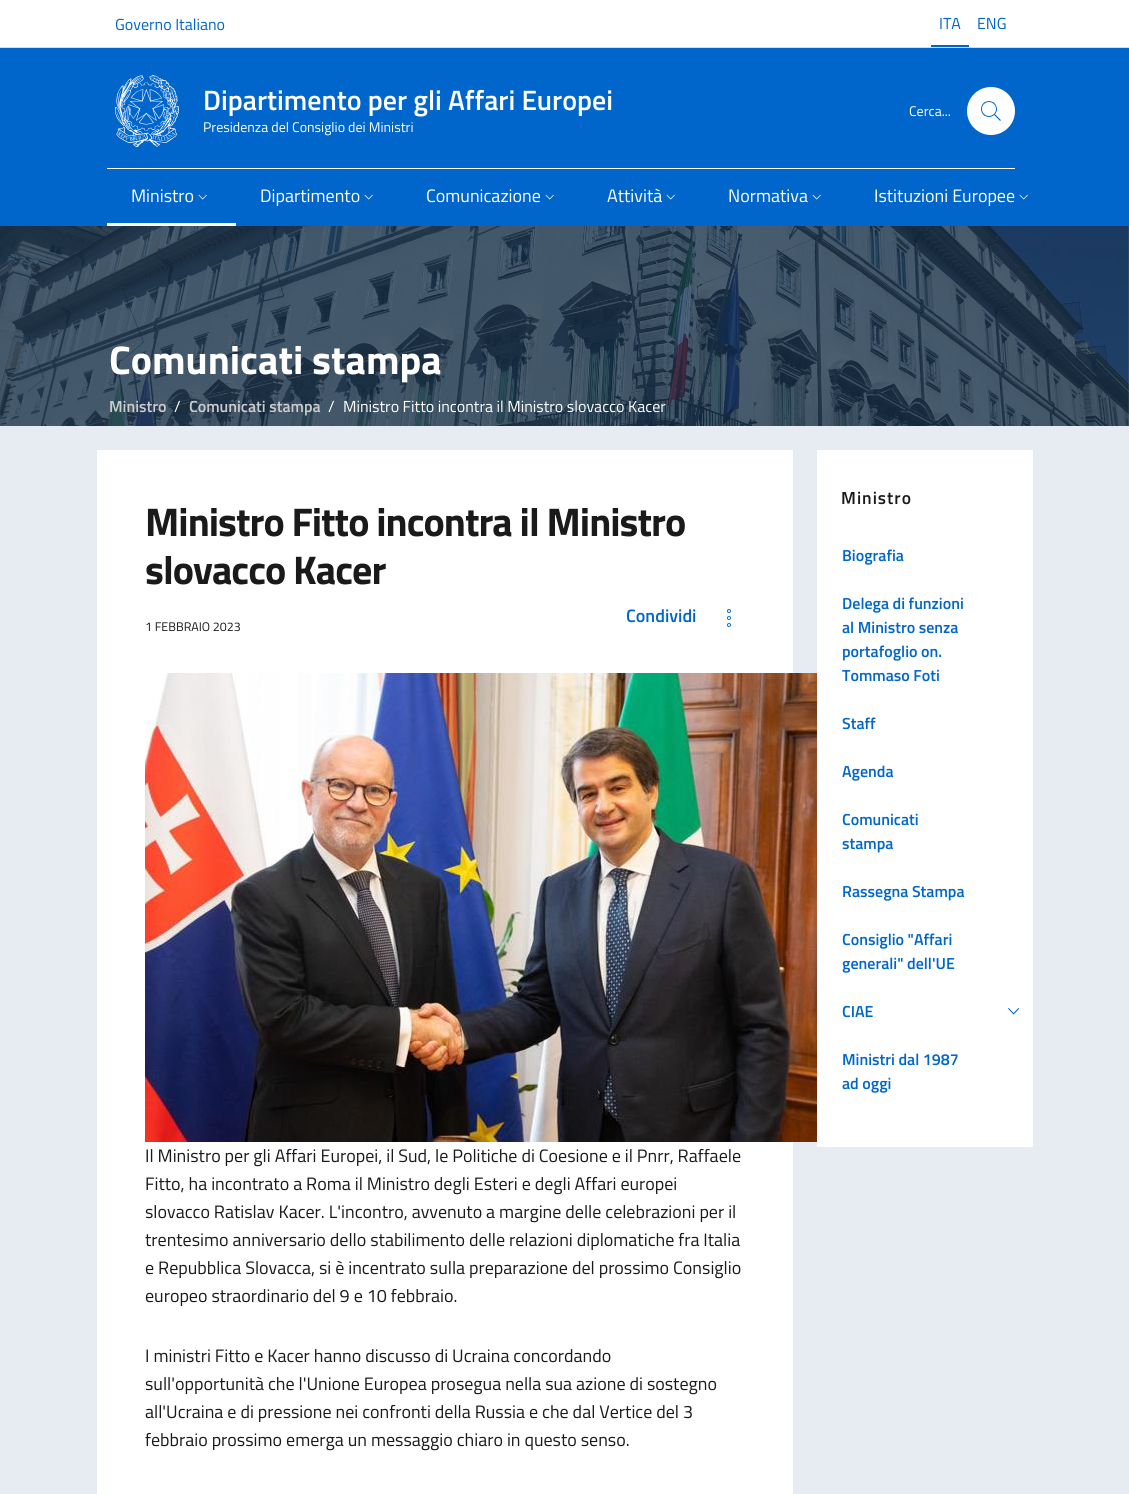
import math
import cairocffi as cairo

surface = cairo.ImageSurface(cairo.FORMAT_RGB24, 1129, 1494)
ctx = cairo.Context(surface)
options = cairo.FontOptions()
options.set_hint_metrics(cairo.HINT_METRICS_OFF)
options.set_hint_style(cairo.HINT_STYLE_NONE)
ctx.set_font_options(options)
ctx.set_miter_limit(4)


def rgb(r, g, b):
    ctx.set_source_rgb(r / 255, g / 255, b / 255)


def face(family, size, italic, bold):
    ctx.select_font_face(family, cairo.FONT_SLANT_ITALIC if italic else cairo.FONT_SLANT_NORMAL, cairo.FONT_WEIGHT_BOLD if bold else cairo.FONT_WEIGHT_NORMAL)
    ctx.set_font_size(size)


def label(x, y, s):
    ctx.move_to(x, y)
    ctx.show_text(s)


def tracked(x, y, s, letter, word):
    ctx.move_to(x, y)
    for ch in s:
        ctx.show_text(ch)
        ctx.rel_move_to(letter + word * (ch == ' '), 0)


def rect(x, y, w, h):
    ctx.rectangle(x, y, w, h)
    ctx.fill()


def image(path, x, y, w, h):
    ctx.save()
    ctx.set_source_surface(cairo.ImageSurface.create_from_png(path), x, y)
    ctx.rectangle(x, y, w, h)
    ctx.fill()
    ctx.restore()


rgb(255, 255, 255)
ctx.paint()
rgb(204, 224, 245)
rect(0, 47, 1129, 1)
face('Titillium Web', 16, 0, 0)
rgb(0, 102, 204)
label(115, 30, 'Governo Italiano')
rect(931, 45, 38, 2)
label(939, 29, 'ITA')
label(977, 29, 'ENG')
rect(0, 48, 1129, 178)
image('image0.png', 115, 75, 64, 72)
face('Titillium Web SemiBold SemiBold', 28, 0, 0)
rgb(255, 255, 255)
label(203, 110, 'Dipartimento per gli Affari Europei')
face('Titillium Web', 14, 0, 0)
label(203, 132, 'Presidenza del Consiglio dei Ministri')
label(909, 116, 'Cerca...')
ctx.new_path()
ctx.arc(991, 111, 24, 0, 2 * math.pi)
ctx.fill()
image('image1.png', 981, 101, 20, 20)
rect(107, 168, 908, 1)
rect(107, 223, 129, 3)
face('Titillium Web', 18, 0, 0)
label(131, 202, 'Ministro')
image('image2.png', 198, 194, 9, 6)
label(260, 202, 'Dipartimento')
image('image2.png', 364, 194, 9, 6)
label(426, 202, 'Comunicazione')
image('image2.png', 545, 194, 9, 6)
label(607, 202, 'Attività')
image('image2.png', 666, 194, 9, 6)
label(728, 202, 'Normativa')
image('image2.png', 812, 194, 9, 6)
label(874, 202, 'Istituzioni Europee')
image('image2.png', 1019, 194, 9, 6)
image('image3.png', 0, 226, 1129, 200)
rgb(230, 236, 242)
rect(0, 426, 1129, 1068)
face('Titillium Web', 40, 0, 1)
rgb(255, 255, 255)
label(109, 374, 'Comunicati stampa')
face('Titillium Web SemiBold SemiBold', 16, 0, 0)
rgb(204, 204, 204)
label(109, 412, 'Ministro')
face('Titillium Web', 16, 0, 0)
rgb(255, 255, 255)
label(174, 412, '/')
face('Titillium Web SemiBold SemiBold', 16, 0, 0)
rgb(204, 204, 204)
label(189, 412, 'Comunicati stampa')
face('Titillium Web', 16, 0, 0)
rgb(255, 255, 255)
label(328, 412, '/')
label(343, 412, 'Ministro Fitto incontra il Ministro slovacco Kacer')
rect(97, 450, 696, 1044)
face('Titillium Web', 40, 0, 1)
rgb(26, 26, 26)
tracked(145, 536, 'Ministro Fitto incontra il Ministro', -1, 0)
tracked(145, 584, 'slovacco Kacer', -1, 0)
face('Titillium Web SemiBold SemiBold', 18, 0, 0)
rgb(0, 102, 204)
label(626, 622, 'Condividi')
image('image4.png', 727, 609, 4, 18)
face('Titillium Web', 12.5, 0, 0)
rgb(26, 26, 26)
label(145, 631, '1 FEBBRAIO 2023')
image('image5.png', 145, 673, 672, 469)
face('Titillium Web', 18, 0, 0)
label(145, 1162, 'Il Ministro per gli Affari Europei, il Sud, le Politiche di Coesione e il Pnrr, Raffaele')
label(145, 1190, 'Fitto, ha incontrato a Roma il Ministro degli Esteri e degli Affari europei')
label(145, 1218, 'slovacco Ratislav Kacer. L\'incontro, avvenuto a margine delle celebrazioni per il')
label(145, 1246, 'trentesimo anniversario dello stabilimento delle relazioni diplomatiche fra Italia')
label(145, 1274, 'e Repubblica Slovacca, si è incentrato sulla preparazione del prossimo Consiglio')
label(145, 1302, 'europeo straordinario del 9 e 10 febbraio.')
label(145, 1362, 'I ministri Fitto e Kacer hanno discusso di Ucraina concordando')
label(145, 1390, 'sull\'opportunità che l\'Unione Europea prosegua nella sua azione di sostegno')
label(145, 1418, 'all\'Ucraina e di pressione nei confronti della Russia e che dal Vertice del 3')
label(145, 1446, 'febbraio prossimo emerga un messaggio chiaro in questo senso.')
rgb(255, 255, 255)
rect(817, 450, 216, 697)
face('Titillium Web SemiBold SemiBold', 17.5, 0, 0)
rgb(26, 26, 26)
tracked(841, 504, 'Ministro', 1, 0)
face('Titillium Web SemiBold SemiBold', 16, 0, 0)
rgb(0, 102, 204)
label(842, 561, 'Biografia')
label(842, 609, 'Delega di funzioni')
label(842, 633, 'al Ministro senza')
label(842, 657, 'portafoglio on.')
label(842, 681, 'Tommaso Foti')
label(842, 729, 'Staff')
label(842, 777, 'Agenda')
label(842, 825, 'Comunicati')
label(842, 849, 'stampa')
label(842, 897, 'Rassegna Stampa')
label(842, 945, 'Consiglio "Affari')
label(842, 969, 'generali" dell\'UE')
label(842, 1017, 'CIAE')
image('image6.png', 1008, 1008, 12, 7)
label(842, 1065, 'Ministri dal 1987')
label(842, 1089, 'ad oggi')
surface.write_to_png('render.png')
